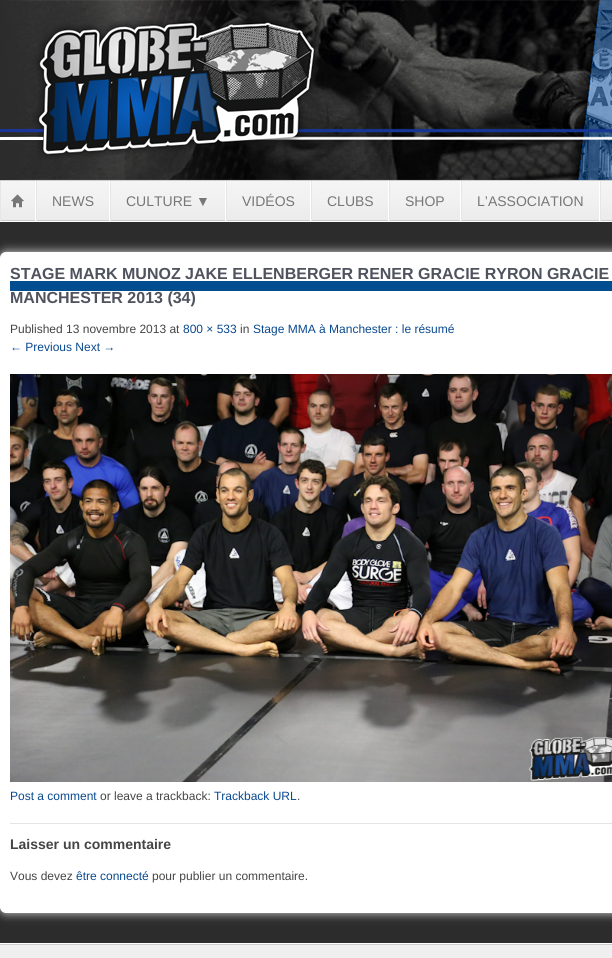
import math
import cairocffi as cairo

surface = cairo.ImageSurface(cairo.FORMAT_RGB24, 612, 958)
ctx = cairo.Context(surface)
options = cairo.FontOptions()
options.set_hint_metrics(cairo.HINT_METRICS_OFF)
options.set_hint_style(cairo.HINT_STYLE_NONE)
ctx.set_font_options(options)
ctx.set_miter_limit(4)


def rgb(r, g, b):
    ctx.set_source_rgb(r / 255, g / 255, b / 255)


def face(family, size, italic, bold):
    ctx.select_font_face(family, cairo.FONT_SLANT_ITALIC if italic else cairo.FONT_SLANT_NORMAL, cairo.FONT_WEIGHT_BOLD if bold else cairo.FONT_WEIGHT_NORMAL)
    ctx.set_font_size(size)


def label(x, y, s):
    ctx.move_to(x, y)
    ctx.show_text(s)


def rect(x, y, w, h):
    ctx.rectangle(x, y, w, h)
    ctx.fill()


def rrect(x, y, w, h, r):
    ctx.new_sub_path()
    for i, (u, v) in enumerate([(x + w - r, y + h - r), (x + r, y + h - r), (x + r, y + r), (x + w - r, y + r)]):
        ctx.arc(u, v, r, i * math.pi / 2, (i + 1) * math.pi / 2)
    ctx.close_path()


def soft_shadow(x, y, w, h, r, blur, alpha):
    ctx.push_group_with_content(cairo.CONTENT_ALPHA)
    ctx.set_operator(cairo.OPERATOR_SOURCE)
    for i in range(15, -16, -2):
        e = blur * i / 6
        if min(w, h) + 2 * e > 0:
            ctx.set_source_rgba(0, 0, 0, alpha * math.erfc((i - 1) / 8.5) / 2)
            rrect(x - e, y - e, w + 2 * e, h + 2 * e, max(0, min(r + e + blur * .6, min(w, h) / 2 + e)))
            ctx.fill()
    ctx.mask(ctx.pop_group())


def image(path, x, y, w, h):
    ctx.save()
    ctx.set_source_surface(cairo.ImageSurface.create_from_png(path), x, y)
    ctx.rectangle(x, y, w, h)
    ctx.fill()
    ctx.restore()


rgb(44, 44, 44)
ctx.paint()
image('image0.png', 0, 129, 5, 11)
image('image1.png', 5, 0, 607, 180)
image('image2.png', 1, 181, 611, 40)
rgb(204, 204, 204)
rect(0, 180, 612, 1)
rgb(230, 230, 230)
rect(0, 181, 1, 40)
image('image3.png', 11, 194, 13, 14)
rgb(255, 255, 255)
rect(35, 181, 1, 40)
face('Liberation Sans', 14, 0, 0)
rgb(119, 119, 119)
label(52, 206, 'NEWS')
rgb(255, 255, 255)
rect(109, 181, 1, 40)
rgb(230, 230, 230)
rect(36, 181, 1, 40)
rgb(119, 119, 119)
label(126, 206, 'CULTURE ▼')
rgb(255, 255, 255)
rect(225, 181, 1, 40)
rgb(230, 230, 230)
rect(110, 181, 1, 40)
rgb(119, 119, 119)
label(242, 206, 'VIDÉOS')
rgb(255, 255, 255)
rect(310, 181, 1, 40)
rgb(230, 230, 230)
rect(226, 181, 1, 40)
rgb(119, 119, 119)
label(327, 206, 'CLUBS')
rgb(255, 255, 255)
rect(388, 181, 1, 40)
rgb(230, 230, 230)
rect(311, 181, 1, 40)
rgb(119, 119, 119)
label(405, 206, 'SHOP')
rgb(255, 255, 255)
rect(460, 181, 1, 40)
rgb(230, 230, 230)
rect(389, 181, 1, 40)
rgb(119, 119, 119)
label(477, 206, 'L’ASSOCIATION')
rgb(255, 255, 255)
rect(599, 181, 1, 40)
rgb(230, 230, 230)
rect(461, 181, 1, 40)
rect(600, 181, 1, 40)
rgb(255, 255, 255)
rect(0, 221, 612, 1)
rect(0, 943, 612, 1)
rgb(219, 219, 219)
soft_shadow(0, 252, 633, 661, 6, 5, 1)
rgb(255, 255, 255)
rrect(0, 252, 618, 661, 6)
ctx.fill()
rgb(0, 78, 144)
rect(10, 281, 602, 10)
face('Liberation Sans', 16, 0, 1)
rgb(78, 83, 94)
label(10, 279, 'STAGE MARK MUNOZ JAKE ELLENBERGER RENER GRACIE RYRON GRACIE')
label(10, 303, 'MANCHESTER 2013 (34)')
face('Liberation Sans', 12, 0, 0)
rgb(69, 69, 69)
label(10, 333, 'Published 13 novembre 2013 at')
rgb(10, 73, 142)
label(183, 333, '800 × 533')
rgb(69, 69, 69)
label(240, 333, 'in')
rgb(10, 73, 142)
label(253, 333, 'Stage MMA à Manchester : le résumé')
label(10, 351, '← Previous Next →')
image('image4.png', 10, 374, 602, 408)
label(10, 800, 'Post a comment')
rgb(69, 69, 69)
label(100, 800, 'or leave a trackback:')
rgb(10, 73, 142)
label(214, 800, 'Trackback URL')
rgb(69, 69, 69)
label(297, 800, '.')
rgb(228, 228, 228)
rect(10, 823, 602, 1)
face('Liberation Sans', 14, 0, 1)
rgb(69, 69, 69)
label(10, 849, 'Laisser un commentaire')
face('Liberation Sans', 12, 0, 0)
label(10, 880, 'Vous devez')
rgb(10, 73, 142)
label(76, 880, 'être connecté')
rgb(69, 69, 69)
label(152, 880, 'pour publier un commentaire.')
rgb(239, 239, 239)
rect(0, 945, 612, 13)
rgb(204, 204, 204)
rect(0, 944, 612, 1)
surface.write_to_png('render.png')
